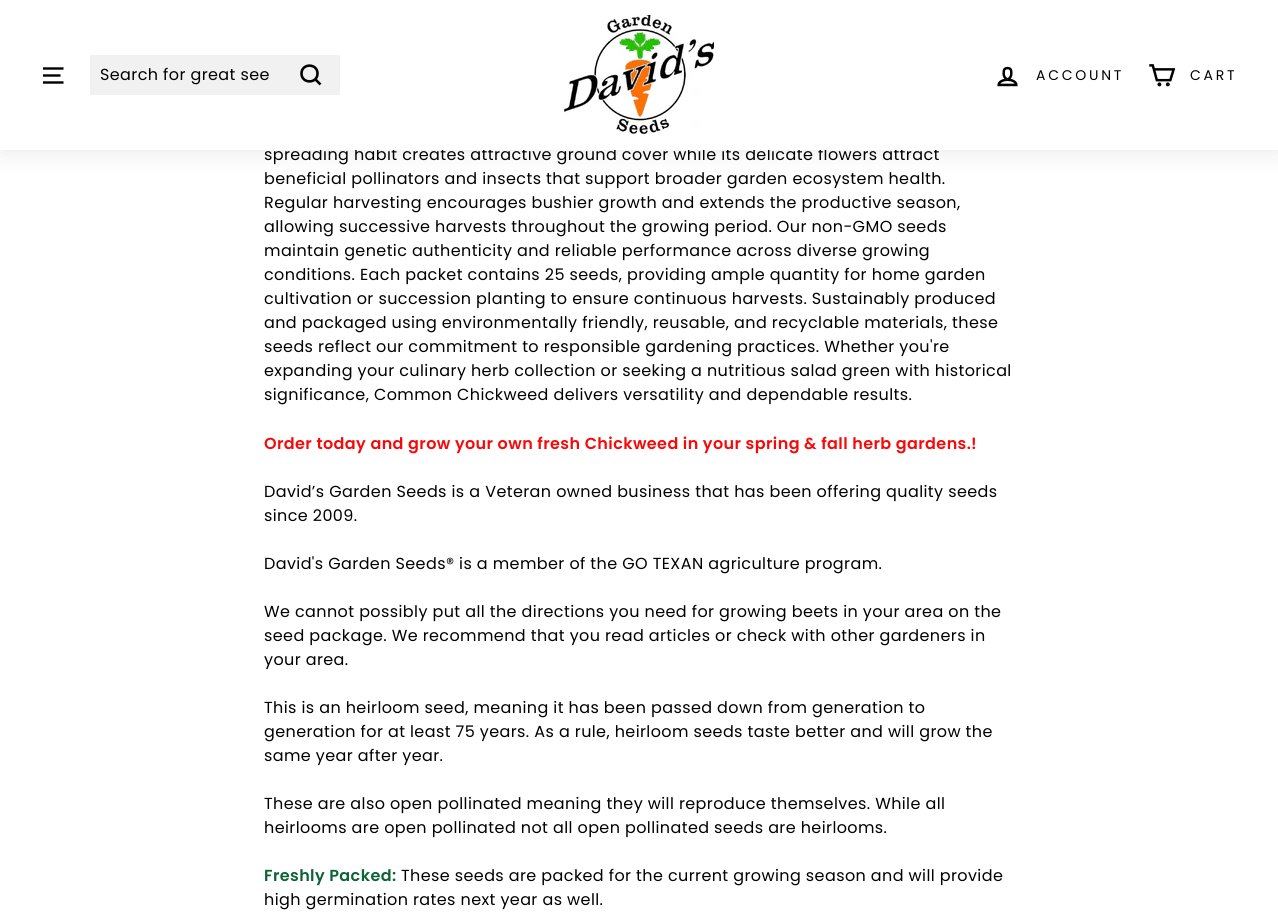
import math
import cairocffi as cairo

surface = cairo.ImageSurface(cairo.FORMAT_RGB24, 1278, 920)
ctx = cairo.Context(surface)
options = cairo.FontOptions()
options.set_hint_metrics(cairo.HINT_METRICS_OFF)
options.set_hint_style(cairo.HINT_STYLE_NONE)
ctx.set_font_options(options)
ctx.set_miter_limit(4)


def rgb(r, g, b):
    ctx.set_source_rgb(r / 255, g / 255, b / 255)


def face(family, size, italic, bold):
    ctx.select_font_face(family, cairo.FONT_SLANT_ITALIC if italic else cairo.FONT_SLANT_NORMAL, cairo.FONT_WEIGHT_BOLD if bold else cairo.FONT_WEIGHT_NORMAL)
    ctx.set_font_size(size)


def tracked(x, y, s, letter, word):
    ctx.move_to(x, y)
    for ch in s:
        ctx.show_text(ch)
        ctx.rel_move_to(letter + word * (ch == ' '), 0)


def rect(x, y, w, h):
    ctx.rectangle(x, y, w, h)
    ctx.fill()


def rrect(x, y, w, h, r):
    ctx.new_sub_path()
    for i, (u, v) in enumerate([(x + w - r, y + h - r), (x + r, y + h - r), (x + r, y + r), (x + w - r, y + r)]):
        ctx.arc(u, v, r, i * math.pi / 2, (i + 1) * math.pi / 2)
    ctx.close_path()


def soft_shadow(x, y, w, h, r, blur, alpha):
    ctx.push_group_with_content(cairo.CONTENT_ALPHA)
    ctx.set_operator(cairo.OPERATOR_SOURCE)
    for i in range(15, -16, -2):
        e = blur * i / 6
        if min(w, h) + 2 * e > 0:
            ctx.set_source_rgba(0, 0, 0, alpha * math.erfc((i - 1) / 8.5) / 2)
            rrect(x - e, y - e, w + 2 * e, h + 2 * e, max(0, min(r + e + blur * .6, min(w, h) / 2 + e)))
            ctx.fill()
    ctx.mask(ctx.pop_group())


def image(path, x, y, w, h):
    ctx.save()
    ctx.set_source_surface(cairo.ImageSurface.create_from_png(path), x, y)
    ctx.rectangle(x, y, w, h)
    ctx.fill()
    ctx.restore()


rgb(255, 255, 255)
ctx.paint()
rgb(0, 0, 0)
soft_shadow(0, 0, 1278, 150, 0, 12.5, 0.1)
face('Poppins', 16, 0, 0)
rgb(0, 0, 0)
tracked(264, 160, 'spreading habit creates attractive ground cover while its delicate flowers attract', 0.4, 0)
rgb(255, 255, 255)
rect(0, 0, 1278, 150)
ctx.new_path()
ctx.move_to(43, 68.5)
ctx.line_to(63.5, 68.5)
ctx.move_to(43, 75.5)
ctx.line_to(60.5, 75.5)
ctx.move_to(43, 82.5)
ctx.line_to(63.5, 82.5)
rgb(0, 0, 0)
ctx.set_line_width(2.4)
ctx.stroke()
rgb(241, 241, 241)
rect(90, 55, 250, 40)
rgb(0, 0, 0)
tracked(100, 80, 'Search for great see', 0.4, 0)
ctx.new_path()
ctx.move_to(317.5, 73.5)
ctx.curve_to(317.5, 84, 301.5, 84, 301.5, 73.5)
ctx.curve_to(301.5, 63, 317.5, 63, 317.5, 73.5)
ctx.close_path()
ctx.move_to(320.5, 84.5)
ctx.line_to(315.5, 79.5)
ctx.set_line_width(2.6)
ctx.stroke()
image('image0.png', 564, 15, 150, 120)
image('image1.png', 997, 66, 21, 21)
face('Poppins', 14, 0, 0)
tracked(1036, 80, 'ACCOUNT', 2.75, 0)
image('image2.png', 1149, 64, 26, 23)
tracked(1190, 80, 'CART', 2.75, 0)
face('Poppins', 16, 0, 0)
tracked(264, 184, 'beneficial pollinators and insects that support broader garden ecosystem health.', 0.4, 0)
tracked(264, 208, 'Regular harvesting encourages bushier growth and extends the productive season,', 0.4, 0)
tracked(264, 232, 'allowing successive harvests throughout the growing period. Our non-GMO seeds', 0.4, 0)
tracked(264, 256, 'maintain genetic authenticity and reliable performance across diverse growing', 0.4, 0)
tracked(264, 280, 'conditions. Each packet contains 25 seeds, providing ample quantity for home garden', 0.4, 0)
tracked(264, 304, 'cultivation or succession planting to ensure continuous harvests. Sustainably produced', 0.4, 0)
tracked(264, 328, 'and packaged using environmentally friendly, reusable, and recyclable materials, these', 0.4, 0)
tracked(264, 352, 'seeds reflect our commitment to responsible gardening practices. Whether you\'re', 0.4, 0)
tracked(264, 376, 'expanding your culinary herb collection or seeking a nutritious salad green with historical', 0.4, 0)
tracked(264, 400, 'significance, Common Chickweed delivers versatility and dependable results.', 0.4, 0)
face('Poppins SemiBold', 16, 0, 0)
rgb(248, 9, 9)
tracked(264, 449, 'Order today and grow your own fresh Chickweed in your spring & fall herb gardens.', 0.4, 0)
tracked(971, 449, '!', 0.4, 0)
face('Poppins', 16, 0, 0)
rgb(0, 0, 0)
tracked(264, 497, 'David’s Garden Seeds is a Veteran owned business that has been offering quality seeds', 0.4, 0)
tracked(264, 521, 'since 2009.', 0.4, 0)
tracked(264, 569, 'David\'s Garden Seeds® is a member of the GO TEXAN agriculture program.', 0.4, 0)
tracked(264, 617, 'We cannot possibly put all the directions you need for growing beets in your area on the', 0.4, 0)
tracked(264, 641, 'seed package. We recommend that you read articles or check with other gardeners in', 0.4, 0)
tracked(264, 665, 'your area.', 0.4, 0)
tracked(264, 713, 'This is an heirloom seed, meaning it has been passed down from generation to', 0.4, 0)
tracked(264, 737, 'generation for at least 75 years. As a rule, heirloom seeds taste better and will grow the', 0.4, 0)
tracked(264, 761, 'same year after year.', 0.4, 0)
tracked(264, 809, 'These are also open pollinated meaning they will reproduce themselves. While all', 0.4, 0)
tracked(264, 833, 'heirlooms are open pollinated not all open pollinated seeds are heirlooms.', 0.4, 0)
face('Poppins SemiBold', 16, 0, 0)
rgb(13, 99, 53)
tracked(264, 881, 'Freshly Packed:', 0.4, 0)
face('Poppins', 16, 0, 0)
rgb(0, 0, 0)
tracked(401, 881, 'These seeds are packed for the current growing season and will provide', 0.4, 0)
tracked(264, 905, 'high germination rates next year as well.', 0.4, 0)
surface.write_to_png('render.png')
